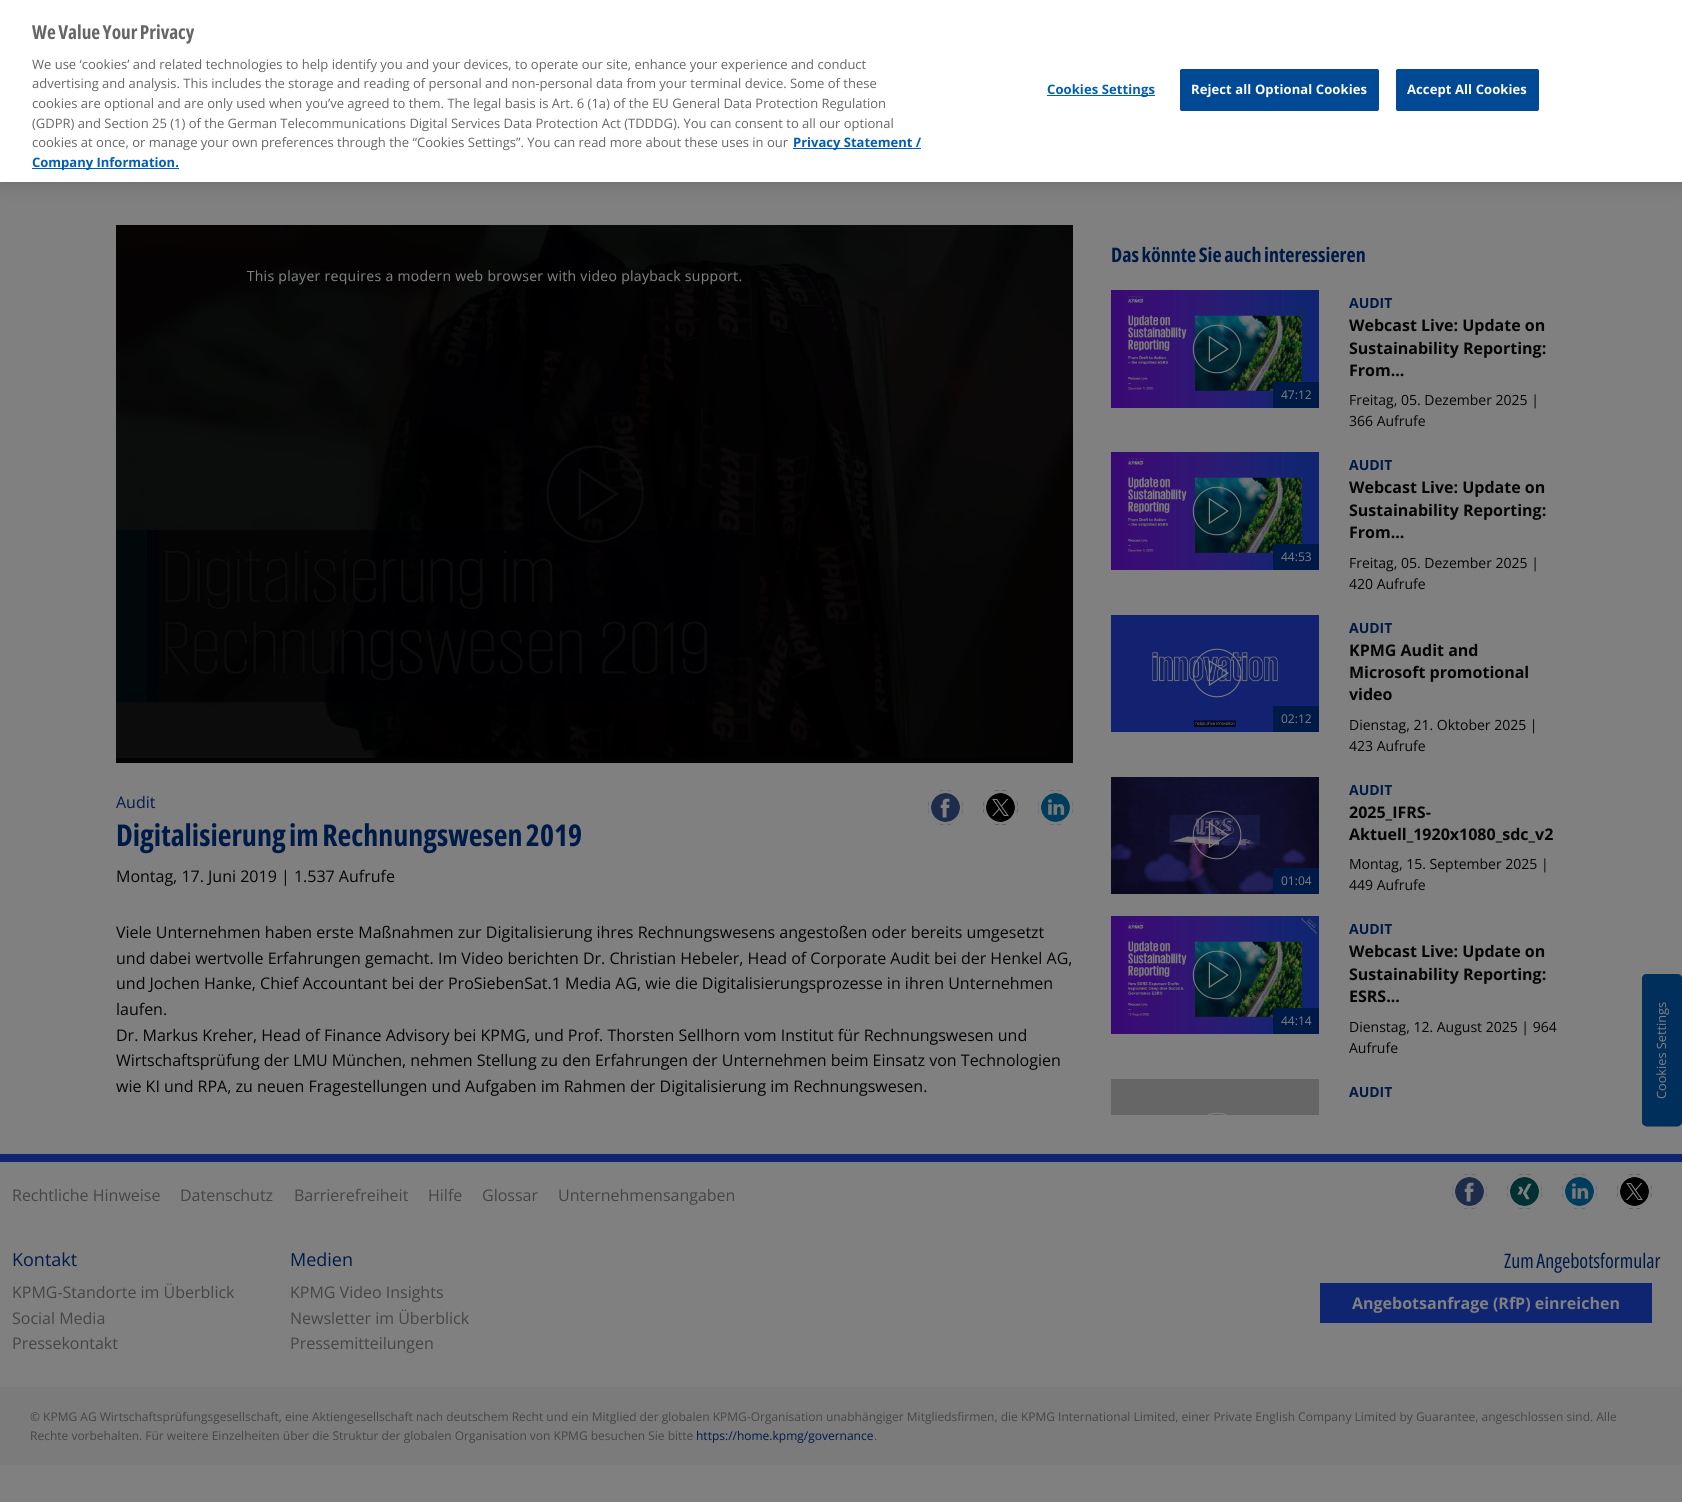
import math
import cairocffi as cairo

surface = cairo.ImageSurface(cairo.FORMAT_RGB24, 1682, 1502)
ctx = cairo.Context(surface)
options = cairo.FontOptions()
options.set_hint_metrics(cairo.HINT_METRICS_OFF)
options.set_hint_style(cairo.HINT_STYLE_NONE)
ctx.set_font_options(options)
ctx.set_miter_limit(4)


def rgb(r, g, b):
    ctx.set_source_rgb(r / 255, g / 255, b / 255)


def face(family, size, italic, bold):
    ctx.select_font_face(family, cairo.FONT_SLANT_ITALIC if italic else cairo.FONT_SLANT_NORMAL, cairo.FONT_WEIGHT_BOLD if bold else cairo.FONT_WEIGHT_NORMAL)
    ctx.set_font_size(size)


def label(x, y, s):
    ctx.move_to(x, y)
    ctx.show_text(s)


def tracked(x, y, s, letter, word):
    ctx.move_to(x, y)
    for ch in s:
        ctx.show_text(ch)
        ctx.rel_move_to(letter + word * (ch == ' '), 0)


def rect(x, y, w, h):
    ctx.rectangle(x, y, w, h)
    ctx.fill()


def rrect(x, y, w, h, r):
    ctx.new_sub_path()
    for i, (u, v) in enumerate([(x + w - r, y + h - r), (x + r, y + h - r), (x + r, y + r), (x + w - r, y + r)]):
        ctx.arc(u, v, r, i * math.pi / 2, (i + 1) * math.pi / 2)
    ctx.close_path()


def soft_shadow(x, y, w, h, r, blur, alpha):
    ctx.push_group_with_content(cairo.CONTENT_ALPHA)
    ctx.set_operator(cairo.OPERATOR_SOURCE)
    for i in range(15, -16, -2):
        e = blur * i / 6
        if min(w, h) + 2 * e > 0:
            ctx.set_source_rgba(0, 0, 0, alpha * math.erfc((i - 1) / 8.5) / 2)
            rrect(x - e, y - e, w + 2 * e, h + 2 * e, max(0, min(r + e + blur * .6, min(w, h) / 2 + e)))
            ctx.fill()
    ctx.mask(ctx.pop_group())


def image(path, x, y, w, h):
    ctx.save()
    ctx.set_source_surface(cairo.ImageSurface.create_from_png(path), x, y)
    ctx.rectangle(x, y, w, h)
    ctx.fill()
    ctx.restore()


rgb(128, 128, 128)
ctx.paint()
rgb(0, 0, 0)
soft_shadow(0, 0, 1682, 182, 0, 9, 0.2)
rgb(255, 255, 255)
rect(0, 0, 1682, 182)
face('Open Sans', 19.25, 0, 1)
rgb(102, 102, 102)
tracked(32, 39, 'We Value Your Privacy', 0, -1)
face('Open Sans', 13, 0, 0)
label(32, 69, 'We use ‘cookies’ and related technologies to help identify you and your devices, to operate our site, enhance your experience and conduct')
label(32, 88, 'advertising and analysis. This includes the storage and reading of personal and non-personal data from your terminal device. Some of these')
label(32, 108, 'cookies are optional and are only used when you’ve agreed to them. The legal basis is Art. 6 (1a) of the EU General Data Protection Regulation')
label(32, 128, '(GDPR) and Section 25 (1) of the German Telecommunications Digital Services Data Protection Act (TDDDG). You can consent to all our optional')
label(32, 147, 'cookies at once, or manage your own preferences through the “Cookies Settings”. You can read more about these uses in our')
rgb(0, 94, 184)
rect(793, 148, 128, 1)
face('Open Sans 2', 13, 0, 1)
label(793, 147, 'Privacy Statement /')
rect(32, 168, 147, 1)
label(32, 167, 'Company Information.')
rect(1047, 95, 108, 1)
tracked(1047, 94, 'Cookies Settings', 0.1, 0)
rgb(0, 74, 149)
rrect(1180.5, 69.5, 198, 41, 1.5)
ctx.fill_preserve()
ctx.set_line_width(1)
ctx.stroke()
rgb(255, 255, 255)
tracked(1191, 94, 'Reject all Optional Cookies', 0.1, 0)
rgb(0, 74, 149)
rrect(1396.5, 69.5, 142, 41, 1.5)
ctx.fill_preserve()
ctx.stroke()
rgb(255, 255, 255)
tracked(1407, 94, 'Accept All Cookies', 0.1, 0)
image('image0.png', 116, 225, 957, 538)
face('Open Sans', 16, 0, 0)
rgb(0, 26, 71)
label(116, 808, 'Audit')
face('Open Sans', 30, 0, 1)
tracked(116, 846, 'Digitalisierung im Rechnungswesen 2019', 0, -2)
face('Open Sans', 16, 0, 0)
rgb(5, 5, 5)
label(116, 882, 'Montag, 17. Juni 2019 | 1.537 Aufrufe')
image('image1.png', 928, 790, 35, 35)
ctx.arc(945.5, 807.5, 16, 0, 2 * math.pi)
rgb(128, 128, 128)
ctx.set_line_width(3)
ctx.stroke()
image('image2.png', 983, 790, 35, 35)
ctx.arc(1000.5, 807.5, 16, 0, 2 * math.pi)
ctx.stroke()
image('image3.png', 1038, 790, 35, 35)
ctx.arc(1055.5, 807.5, 16, 0, 2 * math.pi)
ctx.stroke()
rgb(5, 5, 5)
label(116, 938, 'Viele Unternehmen haben erste Maßnahmen zur Digitalisierung ihres Rechnungswesens angestoßen oder bereits umgesetzt')
label(116, 964, 'und dabei wertvolle Erfahrungen gemacht. Im Video berichten Dr. Christian Hebeler, Head of Corporate Audit bei der Henkel AG,')
label(116, 989, 'und Jochen Hanke, Chief Accountant bei der ProSiebenSat.1 Media AG, wie die Digitalisierungsprozesse in ihren Unternehmen')
label(116, 1015, 'laufen.')
label(116, 1041, 'Dr. Markus Kreher, Head of Finance Advisory bei KPMG, und Prof. Thorsten Sellhorn vom Institut für Rechnungswesen und')
label(116, 1066, 'Wirtschaftsprüfung der LMU München, nehmen Stellung zu den Erfahrungen der Unternehmen beim Einsatz von Technologien')
label(116, 1092, 'wie KI und RPA, zu neuen Fragestellungen und Aufgaben im Rahmen der Digitalisierung im Rechnungswesen.')
face('Open Sans', 20, 0, 1)
rgb(0, 26, 71)
tracked(1111, 262, 'Das könnte Sie auch interessieren', 0, -1)
image('image4.png', 1111, 290, 208, 118)
image('image5.png', 1192, 324, 50, 50)
rect(1273, 382, 46, 26)
face('Open Sans', 12, 0, 0)
rgb(128, 128, 128)
label(1281, 399, '47:12')
face('Open Sans 2', 14, 0, 1)
rgb(0, 26, 71)
label(1349, 308, 'AUDIT')
face('Open Sans 2', 16, 0, 1)
rgb(5, 5, 5)
label(1349, 331, 'Webcast Live: Update on')
label(1349, 354, 'Sustainability Reporting:')
label(1349, 376, 'From...')
face('Open Sans', 14, 0, 0)
label(1349, 405, 'Freitag, 05. Dezember 2025 |')
label(1349, 426, '366 Aufrufe')
image('image4.png', 1111, 452, 208, 118)
image('image5.png', 1192, 486, 50, 50)
rgb(0, 26, 71)
rect(1273, 544, 46, 26)
face('Open Sans', 12, 0, 0)
rgb(128, 128, 128)
label(1281, 561, '44:53')
face('Open Sans 2', 14, 0, 1)
rgb(0, 26, 71)
label(1349, 470, 'AUDIT')
face('Open Sans 2', 16, 0, 1)
rgb(5, 5, 5)
label(1349, 493, 'Webcast Live: Update on')
label(1349, 516, 'Sustainability Reporting:')
label(1349, 538, 'From...')
face('Open Sans', 14, 0, 0)
label(1349, 568, 'Freitag, 05. Dezember 2025 |')
label(1349, 589, '420 Aufrufe')
image('image6.png', 1111, 615, 208, 117)
image('image7.png', 1192, 648, 50, 50)
rgb(0, 26, 71)
rect(1273, 706, 46, 26)
face('Open Sans', 12, 0, 0)
rgb(128, 128, 128)
label(1281, 723, '02:12')
face('Open Sans 2', 14, 0, 1)
rgb(0, 26, 71)
label(1349, 633, 'AUDIT')
face('Open Sans 2', 16, 0, 1)
rgb(5, 5, 5)
label(1349, 656, 'KPMG Audit and')
label(1349, 678, 'Microsoft promotional')
label(1349, 700, 'video')
face('Open Sans', 14, 0, 0)
label(1349, 730, 'Dienstag, 21. Oktober 2025 |')
label(1349, 751, '423 Aufrufe')
image('image8.png', 1111, 777, 208, 117)
image('image9.png', 1192, 810, 50, 50)
rgb(0, 26, 71)
rect(1273, 868, 46, 26)
face('Open Sans', 12, 0, 0)
rgb(128, 128, 128)
label(1281, 885, '01:04')
face('Open Sans 2', 14, 0, 1)
rgb(0, 26, 71)
label(1349, 795, 'AUDIT')
face('Open Sans 2', 16, 0, 1)
rgb(5, 5, 5)
label(1349, 818, '2025_IFRS-')
label(1349, 840, 'Aktuell_1920x1080_sdc_v2')
face('Open Sans', 14, 0, 0)
label(1349, 869, 'Montag, 15. September 2025 |')
label(1349, 890, '449 Aufrufe')
image('image10.png', 1111, 916, 208, 118)
image('image5.png', 1192, 950, 50, 50)
rgb(0, 26, 71)
rect(1273, 1008, 46, 26)
face('Open Sans', 12, 0, 0)
rgb(128, 128, 128)
label(1281, 1025, '44:14')
face('Open Sans 2', 14, 0, 1)
rgb(0, 26, 71)
label(1349, 934, 'AUDIT')
face('Open Sans 2', 16, 0, 1)
rgb(5, 5, 5)
label(1349, 957, 'Webcast Live: Update on')
label(1349, 980, 'Sustainability Reporting:')
label(1349, 1002, 'ESRS...')
face('Open Sans', 14, 0, 0)
label(1349, 1032, 'Dienstag, 12. August 2025 | 964')
label(1349, 1053, 'Aufrufe')
rgb(102, 102, 102)
rect(1111, 1079, 208, 36)
image('image11.png', 1207, 1112, 20, 3)
face('Open Sans 2', 14, 0, 1)
rgb(0, 26, 71)
label(1349, 1097, 'AUDIT')
rgb(0, 47, 92)
ctx.new_path()
ctx.move_to(1642, 1122)
ctx.line_to(1642, 979)
ctx.curve_to(1642, 976, 1644, 974, 1647, 974)
ctx.line_to(1677, 974)
ctx.curve_to(1680, 974, 1682, 976, 1682, 979)
ctx.line_to(1682, 1122)
ctx.curve_to(1682, 1124, 1680, 1126, 1677, 1126)
ctx.line_to(1647, 1126)
ctx.curve_to(1644, 1126, 1642, 1124, 1642, 1122)
ctx.close_path()
ctx.fill()
ctx.new_path()
ctx.move_to(1643, 1121.5)
ctx.line_to(1643, 979)
ctx.curve_to(1643, 976.5, 1645, 975, 1647, 975)
ctx.line_to(1677, 975)
ctx.curve_to(1679, 975, 1681, 976.5, 1681, 979)
ctx.line_to(1681, 1121.5)
ctx.curve_to(1681, 1123.5, 1679, 1125.5, 1677, 1125.5)
ctx.line_to(1647, 1125.5)
ctx.curve_to(1645, 1125.5, 1643, 1123.5, 1643, 1121.5)
ctx.close_path()
ctx.set_line_width(2)
ctx.stroke()
face('Open Sans', 12.75, 0, 0)
rgb(128, 128, 128)
ctx.save()
ctx.translate(1666, 1099)
ctx.rotate(-90 * math.pi / 180)
label(0, 0, 'Cookies Settings')
ctx.restore()
rgb(15, 37, 113)
rect(0, 1154, 1682, 8)
face('Open Sans', 16, 0, 0)
rgb(69, 69, 69)
label(12, 1201, 'Rechtliche Hinweise')
label(180, 1201, 'Datenschutz')
label(294, 1201, 'Barrierefreiheit')
label(428, 1201, 'Hilfe')
label(482, 1201, 'Glossar')
label(558, 1201, 'Unternehmensangaben')
image('image1.png', 1452, 1174, 35, 35)
ctx.arc(1469.5, 1191.5, 16, 0, 2 * math.pi)
rgb(128, 128, 128)
ctx.set_line_width(3)
ctx.stroke()
image('image12.png', 1507, 1174, 35, 35)
ctx.arc(1524.5, 1191.5, 16, 0, 2 * math.pi)
ctx.stroke()
image('image3.png', 1562, 1174, 35, 35)
ctx.arc(1579.5, 1191.5, 16, 0, 2 * math.pi)
ctx.stroke()
image('image2.png', 1617, 1174, 35, 35)
ctx.arc(1634.5, 1191.5, 16, 0, 2 * math.pi)
ctx.stroke()
face('Open Sans', 18, 0, 0)
rgb(0, 26, 71)
label(12, 1266, 'Kontakt')
face('Open Sans', 16, 0, 0)
rgb(69, 69, 69)
label(12, 1298, 'KPMG-Standorte im Überblick')
label(12, 1324, 'Social Media')
label(12, 1349, 'Pressekontakt')
face('Open Sans', 18, 0, 0)
rgb(0, 26, 71)
label(290, 1266, 'Medien')
face('Open Sans', 16, 0, 0)
rgb(69, 69, 69)
label(290, 1298, 'KPMG Video Insights')
label(290, 1324, 'Newsletter im Überblick')
label(290, 1349, 'Pressemitteilungen')
face('Open Sans 2', 20, 0, 0)
rgb(0, 26, 71)
tracked(1504, 1268, 'Zum Angebotsformular', 0, -1)
rgb(15, 37, 113)
rect(1320, 1283, 332, 40)
face('Open Sans 2', 16, 0, 1)
rgb(128, 128, 128)
label(1352, 1309, 'Angebotsanfrage (RfP) einreichen')
rgb(123, 123, 123)
rect(0, 1387, 1682, 78)
face('Open Sans', 12, 0, 0)
rgb(69, 69, 69)
label(30, 1421, '© KPMG AG Wirtschaftsprüfungsgesellschaft, eine Aktiengesellschaft nach deutschem Recht und ein Mitglied der globalen KPMG-Organisation unabhängiger Mitgliedsfirmen, die KPMG International Limited, einer Private English Company Limited by Guarantee, angeschlossen sind. Alle')
label(30, 1440, 'Rechte vorbehalten. Für weitere Einzelheiten über die Struktur der globalen Organisation von KPMG besuchen Sie bitte')
rgb(0, 26, 71)
label(696, 1440, 'https://home.kpmg/governance')
rgb(69, 69, 69)
label(874, 1440, '.')
surface.write_to_png('render.png')
